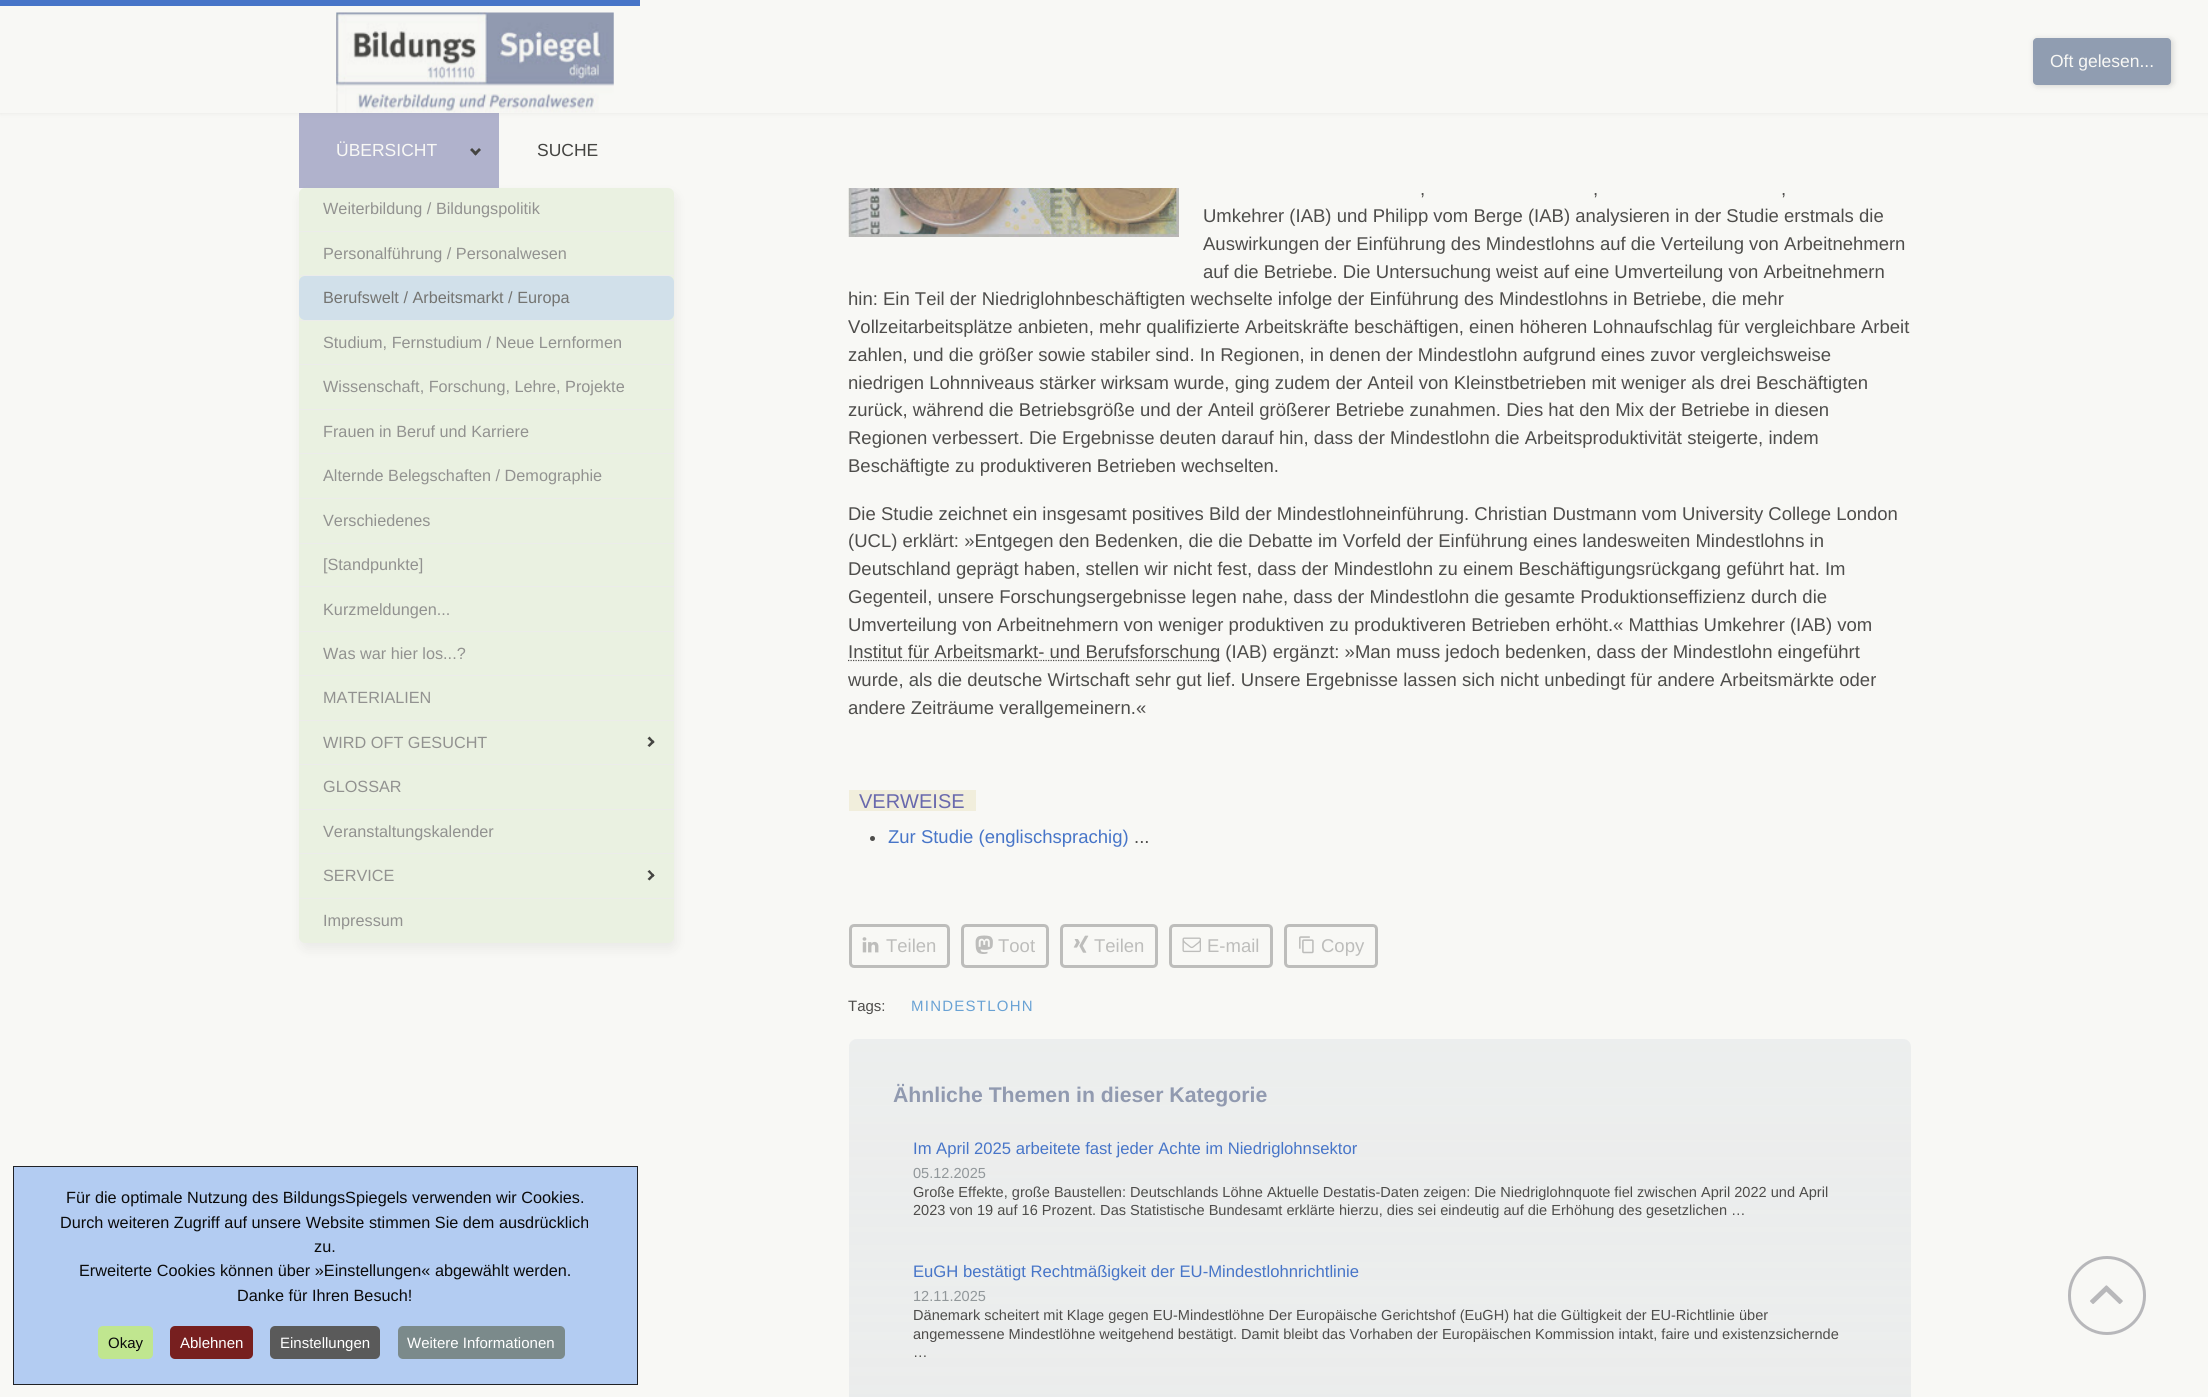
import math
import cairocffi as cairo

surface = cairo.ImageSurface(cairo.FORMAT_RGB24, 2208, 1397)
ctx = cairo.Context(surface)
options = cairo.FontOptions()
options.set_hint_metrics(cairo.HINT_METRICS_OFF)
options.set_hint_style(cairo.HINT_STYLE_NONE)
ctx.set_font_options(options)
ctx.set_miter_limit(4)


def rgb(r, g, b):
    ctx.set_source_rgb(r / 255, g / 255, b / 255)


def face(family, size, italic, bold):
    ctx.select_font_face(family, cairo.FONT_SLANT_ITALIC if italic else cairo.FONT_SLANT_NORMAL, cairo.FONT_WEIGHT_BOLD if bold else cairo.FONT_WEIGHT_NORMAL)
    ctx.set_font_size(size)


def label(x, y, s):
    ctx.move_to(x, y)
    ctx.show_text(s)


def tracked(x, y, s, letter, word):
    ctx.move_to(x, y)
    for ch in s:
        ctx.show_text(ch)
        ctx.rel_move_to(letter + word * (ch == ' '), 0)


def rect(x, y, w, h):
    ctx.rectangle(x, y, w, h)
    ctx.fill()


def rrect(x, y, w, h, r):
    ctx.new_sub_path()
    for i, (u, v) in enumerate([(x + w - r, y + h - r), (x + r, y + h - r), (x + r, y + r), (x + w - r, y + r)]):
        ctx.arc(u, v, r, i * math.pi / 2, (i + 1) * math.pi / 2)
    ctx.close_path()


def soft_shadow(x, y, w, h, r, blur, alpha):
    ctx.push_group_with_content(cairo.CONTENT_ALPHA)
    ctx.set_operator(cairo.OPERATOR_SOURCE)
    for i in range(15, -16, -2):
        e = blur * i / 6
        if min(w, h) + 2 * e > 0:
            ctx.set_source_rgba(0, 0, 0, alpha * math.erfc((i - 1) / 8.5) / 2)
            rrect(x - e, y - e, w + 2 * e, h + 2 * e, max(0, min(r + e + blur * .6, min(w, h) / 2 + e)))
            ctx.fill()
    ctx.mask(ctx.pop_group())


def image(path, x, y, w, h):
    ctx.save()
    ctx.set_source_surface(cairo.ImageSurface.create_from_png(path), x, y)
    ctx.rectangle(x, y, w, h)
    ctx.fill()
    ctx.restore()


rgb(248, 248, 245)
ctx.paint()
rgb(176, 178, 204)
rect(299, 113, 200, 75)
rgb(69, 69, 66)
soft_shadow(0, 0, 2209, 113, 0, 2.5, 0.1)
rgb(248, 248, 245)
rect(0, 0, 2208, 113)
rgb(71, 117, 200)
rect(0, 0, 640, 6)
rgb(69, 69, 66)
soft_shadow(2034, 39, 139, 47, 4, 3, 0.2)
rgb(144, 157, 177)
rrect(2033, 38, 138, 47, 4)
ctx.fill()
face('Liberation Sans', 17.5, 0, 0)
rgb(248, 248, 245)
label(2050, 67, 'Oft gelesen...')
image('image0.png', 336, 12, 278, 101)
label(336, 156, 'ÜBERSICHT')
rgb(69, 69, 66)
ctx.new_path()
ctx.move_to(479, 148)
ctx.line_to(481, 150)
ctx.line_to(475.5, 155.5)
ctx.line_to(473.5, 153.5)
ctx.close_path()
ctx.fill()
ctx.new_path()
ctx.move_to(472, 148)
ctx.line_to(477.5, 153.5)
ctx.line_to(475.5, 155.5)
ctx.line_to(470, 150)
ctx.close_path()
ctx.fill()
rgb(69, 69, 66)
soft_shadow(301, 194, 375, 755, 6, 6, 0.08)
rgb(234, 241, 225)
rrect(299, 188, 375, 755, 6)
ctx.fill()
face('Liberation Sans', 16.25, 0, 0)
rgb(146, 146, 144)
label(323, 214, 'Weiterbildung / Bildungspolitik')
rgb(236, 236, 234)
rect(299, 231, 375, 1)
rgb(146, 146, 144)
label(323, 259, 'Personalführung / Personalwesen')
rgb(236, 236, 234)
rect(299, 275, 375, 1)
rgb(209, 224, 234)
rrect(299, 276, 375, 44, 6)
ctx.fill()
rgb(116, 116, 113)
label(323, 303, 'Berufswelt / Arbeitsmarkt / Europa')
rgb(236, 236, 234)
rect(299, 320, 375, 1)
rgb(146, 146, 144)
label(323, 348, 'Studium, Fernstudium / Neue Lernformen')
rgb(236, 236, 234)
rect(299, 364, 375, 1)
rgb(146, 146, 144)
label(323, 392, 'Wissenschaft, Forschung, Lehre, Projekte')
rgb(236, 236, 234)
rect(299, 409, 375, 1)
rgb(146, 146, 144)
label(323, 437, 'Frauen in Beruf und Karriere')
rgb(236, 236, 234)
rect(299, 453, 375, 1)
rgb(146, 146, 144)
label(323, 481, 'Alternde Belegschaften / Demographie')
rgb(236, 236, 234)
rect(299, 498, 375, 1)
rgb(146, 146, 144)
label(323, 526, 'Verschiedenes')
rgb(236, 236, 234)
rect(299, 543, 375, 1)
rgb(146, 146, 144)
label(323, 570, '[Standpunkte]')
rgb(236, 236, 234)
rect(299, 586, 375, 1)
rgb(146, 146, 144)
label(323, 615, 'Kurzmeldungen...')
rgb(236, 236, 234)
rect(299, 631, 375, 1)
rgb(146, 146, 144)
label(323, 659, 'Was war hier los...?')
rgb(236, 236, 234)
rect(299, 675, 375, 1)
rgb(146, 146, 144)
label(323, 703, 'MATERIALIEN')
rgb(236, 236, 234)
rect(299, 720, 375, 1)
rgb(146, 146, 144)
label(323, 748, 'WIRD OFT GESUCHT')
rgb(69, 69, 66)
ctx.new_path()
ctx.move_to(647.5, 738.5)
ctx.line_to(649.5, 736.5)
ctx.line_to(654.5, 742)
ctx.line_to(653, 743.5)
ctx.close_path()
ctx.fill()
ctx.new_path()
ctx.move_to(647.5, 745.5)
ctx.line_to(653, 740)
ctx.line_to(654.5, 742)
ctx.line_to(649.5, 747)
ctx.close_path()
ctx.fill()
rgb(236, 236, 234)
rect(299, 764, 375, 1)
rgb(146, 146, 144)
label(323, 792, 'GLOSSAR')
rgb(236, 236, 234)
rect(299, 809, 375, 1)
rgb(146, 146, 144)
label(323, 837, 'Veranstaltungskalender')
rgb(236, 236, 234)
rect(299, 853, 375, 1)
rgb(146, 146, 144)
label(323, 881, 'SERVICE')
rgb(69, 69, 66)
ctx.new_path()
ctx.move_to(647.5, 871.5)
ctx.line_to(649.5, 870)
ctx.line_to(654.5, 875.5)
ctx.line_to(653, 877)
ctx.close_path()
ctx.fill()
ctx.new_path()
ctx.move_to(647.5, 879)
ctx.line_to(653, 873.5)
ctx.line_to(654.5, 875.5)
ctx.line_to(649.5, 880.5)
ctx.close_path()
ctx.fill()
rgb(236, 236, 234)
rect(299, 898, 375, 1)
rgb(146, 146, 144)
label(323, 926, 'Impressum')
face('Liberation Sans', 17.5, 0, 0)
rgb(69, 69, 66)
label(537, 156, 'SUCHE')
image('image1.png', 848, 188, 331, 49)
face('Liberation Sans', 18.5, 0, 0)
rgb(78, 77, 75)
label(1420, 195, ',')
label(1593, 195, ',')
label(1781, 195, ',')
label(1203, 222, 'Umkehrer (IAB) und Philipp vom Berge (IAB) analysieren in der Studie erstmals die')
label(1203, 250, 'Auswirkungen der Einführung des Mindestlohns auf die Verteilung von Arbeitnehmern')
label(1203, 278, 'auf die Betriebe. Die Untersuchung weist auf eine Umverteilung von Arbeitnehmern')
label(848, 305, 'hin: Ein Teil der Niedriglohnbeschäftigten wechselte infolge der Einführung des Mindestlohns in Betriebe, die mehr')
label(848, 333, 'Vollzeitarbeitsplätze anbieten, mehr qualifizierte Arbeitskräfte beschäftigen, einen höheren Lohnaufschlag für vergleichbare Arbeit')
label(848, 361, 'zahlen, und die größer sowie stabiler sind. In Regionen, in denen der Mindestlohn aufgrund eines zuvor vergleichsweise')
label(848, 389, 'niedrigen Lohnniveaus stärker wirksam wurde, ging zudem der Anteil von Kleinstbetrieben mit weniger als drei Beschäftigten')
label(848, 416, 'zurück, während die Betriebsgröße und der Anteil größerer Betriebe zunahmen. Dies hat den Mix der Betriebe in diesen')
label(848, 444, 'Regionen verbessert. Die Ergebnisse deuten darauf hin, dass der Mindestlohn die Arbeitsproduktivität steigerte, indem')
label(848, 472, 'Beschäftigte zu produktiveren Betrieben wechselten.')
label(848, 520, 'Die Studie zeichnet ein insgesamt positives Bild der Mindestlohneinführung. Christian Dustmann vom University College London')
label(848, 547, '(UCL) erklärt: »Entgegen den Bedenken, die die Debatte im Vorfeld der Einführung eines landesweiten Mindestlohns in')
label(848, 575, 'Deutschland geprägt haben, stellen wir nicht fest, dass der Mindestlohn zu einem Beschäftigungsrückgang geführt hat. Im')
label(848, 603, 'Gegenteil, unsere Forschungsergebnisse legen nahe, dass der Mindestlohn die gesamte Produktionseffizienz durch die')
label(848, 631, 'Umverteilung von Arbeitnehmern von weniger produktiven zu produktiveren Betrieben erhöht.« Matthias Umkehrer (IAB) vom')
ctx.new_path()
ctx.move_to(848, 660.5)
ctx.line_to(1220.5, 660.5)
ctx.set_line_width(1.2)
ctx.set_dash([1.25, 1.25])
ctx.stroke()
label(848, 658, 'Institut für Arbeitsmarkt- und Berufsforschung (IAB) ergänzt: »Man muss jedoch bedenken, dass der Mindestlohn eingeführt')
label(848, 686, 'wurde, als die deutsche Wirtschaft sehr gut lief. Unsere Ergebnisse lassen sich nicht unbedingt für andere Arbeitsmärkte oder')
label(848, 714, 'andere Zeiträume verallgemeinern.«')
rgb(241, 238, 220)
rect(849, 790, 127, 21)
face('Liberation Sans', 20, 0, 0)
rgb(105, 105, 173)
label(859, 808, 'VERWEISE')
rgb(78, 77, 75)
ctx.new_path()
ctx.arc(872.5, 838.5, 2.5, 0, 2 * math.pi)
ctx.fill()
face('Liberation Sans', 18.5, 0, 0)
rgb(71, 117, 200)
label(888, 843, 'Zur Studie (englischsprachig)')
rgb(78, 77, 75)
label(1134, 843, '...')
rrect(850.5, 925.5, 98, 41, 3.5)
rgb(189, 189, 187)
ctx.set_line_width(3)
ctx.set_dash([])
ctx.stroke()
image('image2.png', 862, 937, 17, 16)
label(886, 952, 'Teilen')
rrect(962.5, 925.5, 85, 41, 3.5)
ctx.stroke()
image('image3.png', 975, 935, 18, 19)
label(998, 952, 'Toot')
rrect(1061.5, 925.5, 95, 41, 3.5)
ctx.stroke()
image('image4.png', 1073, 935, 16, 18)
label(1094, 952, 'Teilen')
rrect(1170.5, 925.5, 101, 41, 3.5)
ctx.stroke()
image('image5.png', 1182, 937, 19, 16)
label(1207, 952, 'E-mail')
rrect(1285.5, 925.5, 91, 41, 3.5)
ctx.stroke()
image('image6.png', 1299, 936, 15, 18)
label(1321, 952, 'Copy')
face('Liberation Sans', 15, 0, 0)
rgb(78, 77, 75)
label(848, 1011, 'Tags:')
rgb(105, 162, 212)
tracked(911, 1011, 'MINDESTLOHN', 1.25, 0)
rgb(234, 236, 236)
rrect(849, 1039, 1062, 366, 8)
ctx.fill()
gradient = cairo.LinearGradient(1380, 1039, 1380, 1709)
gradient.add_color_stop_rgba(0, 0.973, 0.973, 0.961, 0.15)
gradient.add_color_stop_rgba(1, 0.973, 0.973, 0.961, 0)
ctx.set_source(gradient)
rrect(849, 1039, 1062, 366, 8)
ctx.fill()
face('Liberation Sans', 21.25, 0, 1)
rgb(145, 154, 176)
label(893, 1102, 'Ähnliche Themen in dieser Kategorie')
face('Liberation Sans', 16.65, 0, 0)
rgb(71, 117, 200)
label(913, 1154, 'Im April 2025 arbeitete fast jeder Achte im Niedriglohnsektor')
face('Liberation Sans', 14.57, 0, 0)
rgb(145, 151, 154)
label(913, 1178, '05.12.2025')
rgb(78, 77, 75)
label(913, 1197, 'Große Effekte, große Baustellen: Deutschlands Löhne Aktuelle Destatis-Daten zeigen: Die Niedriglohnquote fiel zwischen April 2022 und April')
label(913, 1215, '2023 von 19 auf 16 Prozent. Das Statistische Bundesamt erklärte hierzu, dies sei eindeutig auf die Erhöhung des gesetzlichen …')
face('Liberation Sans', 16.65, 0, 0)
rgb(71, 117, 200)
label(913, 1277, 'EuGH bestätigt Rechtmäßigkeit der EU-Mindestlohnrichtlinie')
face('Liberation Sans', 14.57, 0, 0)
rgb(145, 151, 154)
label(913, 1301, '12.11.2025')
rgb(78, 77, 75)
label(913, 1320, 'Dänemark scheitert mit Klage gegen EU-Mindestlöhne Der Europäische Gerichtshof (EuGH) hat die Gültigkeit der EU-Richtlinie über')
label(913, 1339, 'angemessene Mindestlöhne weitgehend bestätigt. Damit bleibt das Vorhaben der Europäischen Kommission intakt, faire und existenzsichernde')
label(913, 1357, '…')
rgb(179, 204, 242)
ctx.rectangle(13.5, 1166.5, 624, 218)
ctx.fill_preserve()
rgb(32, 34, 38)
ctx.set_line_width(1)
ctx.stroke()
face('Liberation Sans', 16.25, 0, 0)
rgb(10, 10, 10)
label(66, 1203, 'Für die optimale Nutzung des BildungsSpiegels verwenden wir Cookies.')
label(60, 1228, 'Durch weiteren Zugriff auf unsere Website stimmen Sie dem ausdrücklich')
label(314, 1252, 'zu.')
label(79, 1276, 'Erweiterte Cookies können über »Einstellungen« abgewählt werden.')
label(237, 1301, 'Danke für Ihren Besuch!')
rgb(192, 230, 143)
rrect(98, 1326, 55, 33, 5)
ctx.fill()
face('Liberation Sans', 15, 0, 0)
rgb(10, 10, 10)
label(108, 1348, 'Okay')
rgb(119, 31, 31)
rrect(170, 1326, 83, 33, 5)
ctx.fill()
rgb(255, 255, 255)
label(180, 1348, 'Ablehnen')
rgb(90, 90, 90)
rrect(270, 1326, 110, 33, 5)
ctx.fill()
rgb(255, 255, 255)
label(280, 1348, 'Einstellungen')
rgb(123, 138, 139)
rrect(398, 1326, 167, 33, 5)
ctx.fill()
rgb(255, 255, 255)
label(407, 1348, 'Weitere Informationen')
rrect(2069.5, 1257.5, 75, 76, 37.5)
rgb(183, 183, 186)
ctx.set_line_width(3)
ctx.stroke()
image('image7.png', 2090, 1285, 33, 19)
surface.write_to_png('render.png')
